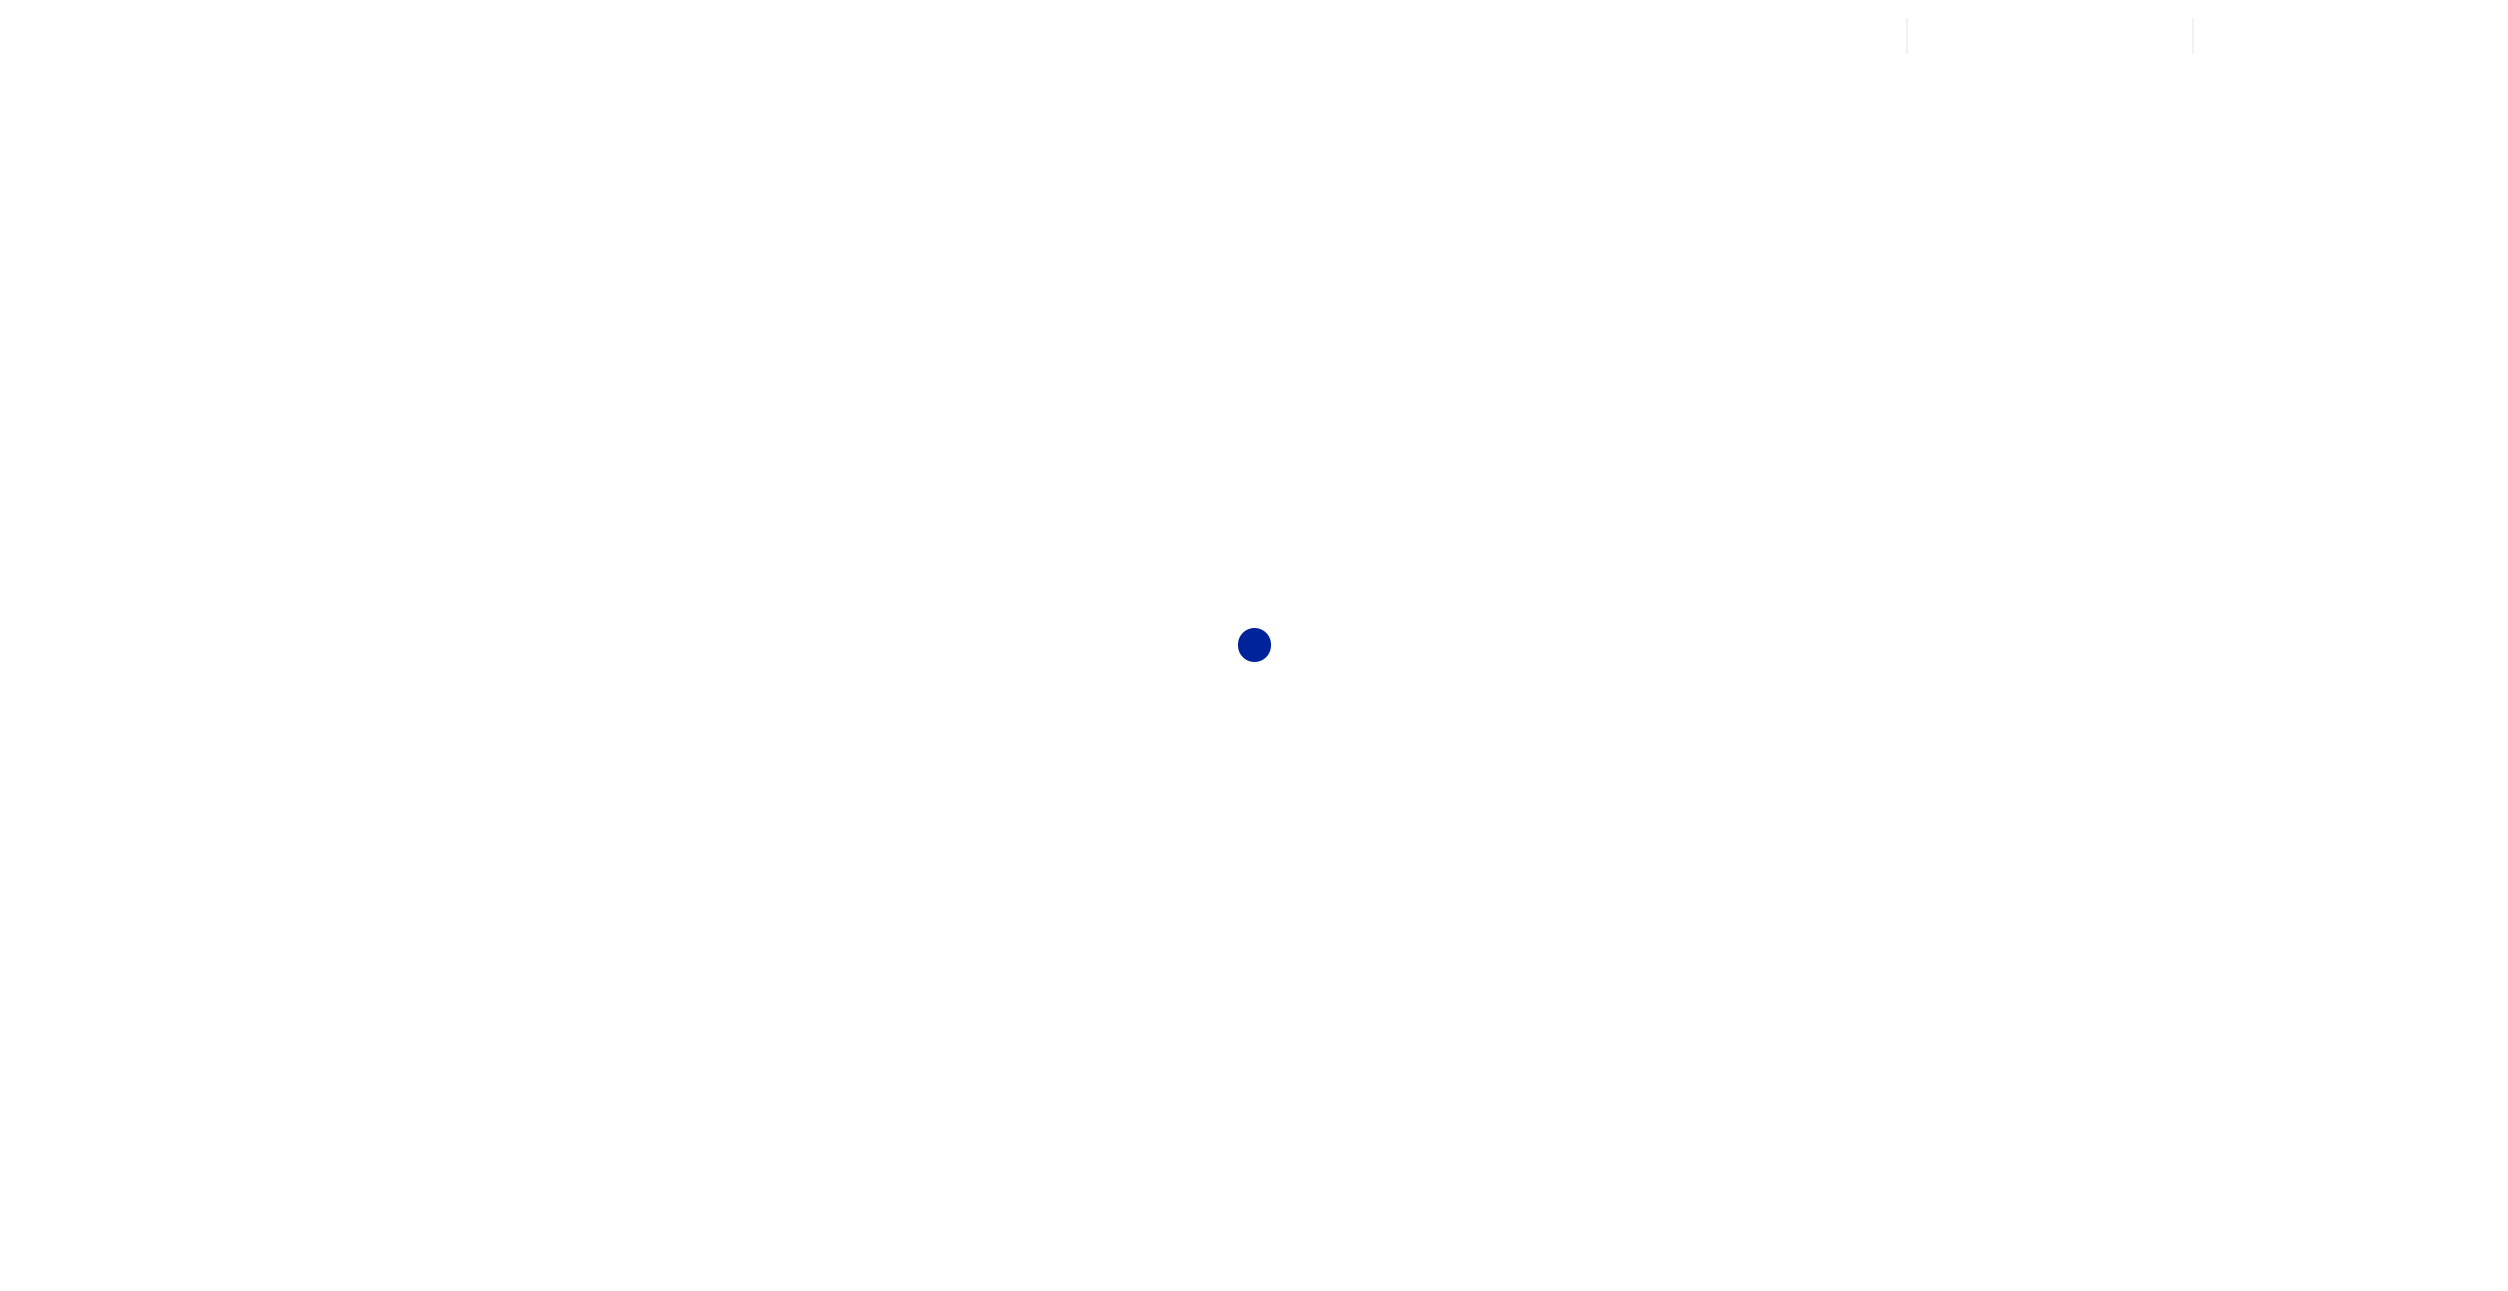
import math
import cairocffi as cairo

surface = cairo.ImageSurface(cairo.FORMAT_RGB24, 2508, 1291)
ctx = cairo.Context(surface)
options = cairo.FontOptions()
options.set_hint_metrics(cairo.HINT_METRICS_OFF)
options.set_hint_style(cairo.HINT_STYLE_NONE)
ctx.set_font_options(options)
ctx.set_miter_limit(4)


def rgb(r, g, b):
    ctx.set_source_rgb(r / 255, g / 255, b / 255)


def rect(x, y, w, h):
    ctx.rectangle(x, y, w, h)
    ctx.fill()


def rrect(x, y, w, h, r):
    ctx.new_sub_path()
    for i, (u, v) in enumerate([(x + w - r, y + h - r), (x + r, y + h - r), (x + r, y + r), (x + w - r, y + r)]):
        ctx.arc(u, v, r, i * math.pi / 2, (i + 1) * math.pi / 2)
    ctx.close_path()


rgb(255, 255, 255)
ctx.paint()
rgb(242, 242, 242)
rect(1906, 18, 2, 36)
rect(2192, 18, 2, 36)
rgb(0, 35, 156)
rrect(1238, 628, 33, 34, 16.5)
ctx.fill()
surface.write_to_png('render.png')
